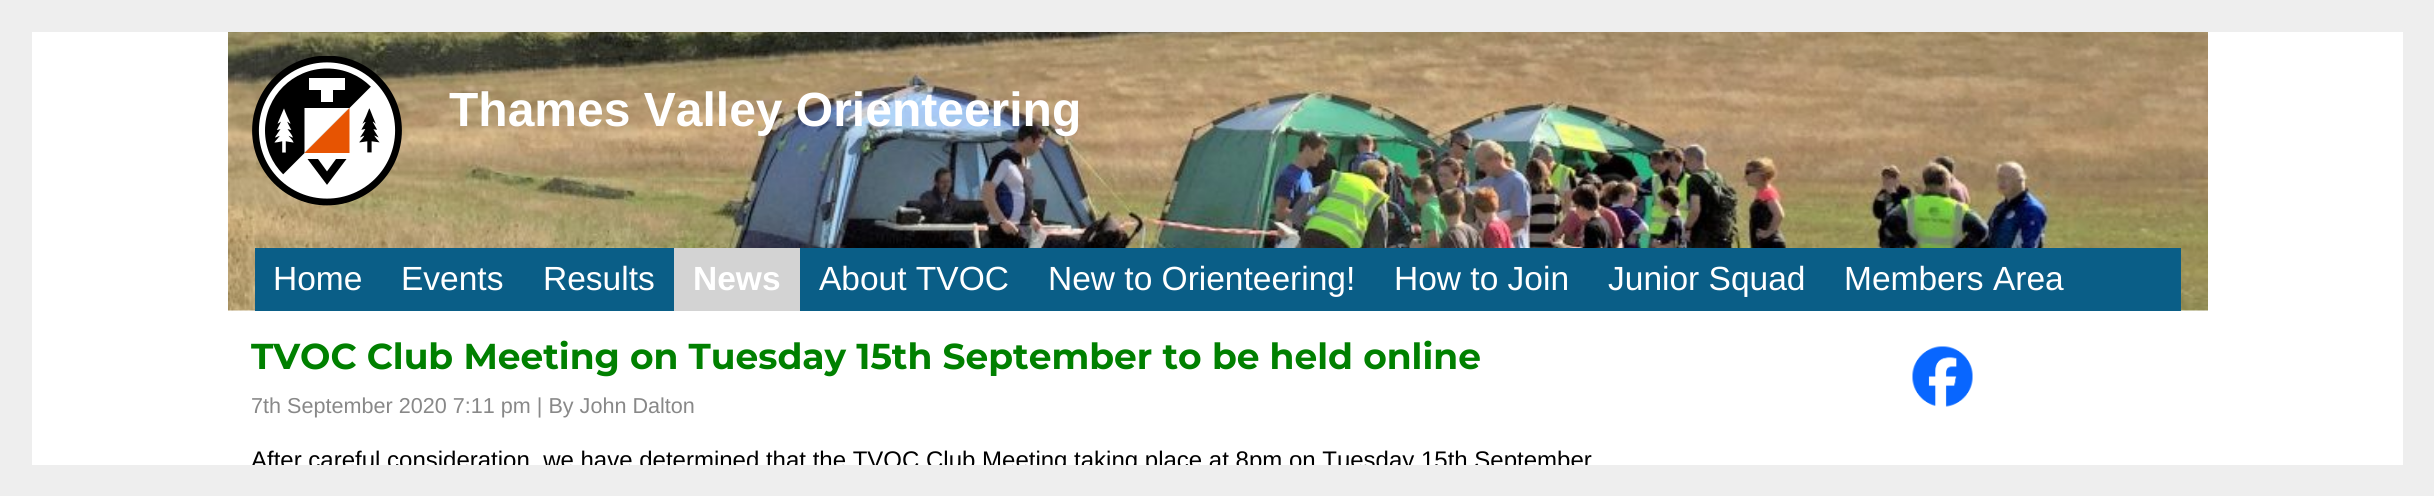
import math
import cairocffi as cairo

surface = cairo.ImageSurface(cairo.FORMAT_RGB24, 2434, 496)
ctx = cairo.Context(surface)
options = cairo.FontOptions()
options.set_hint_metrics(cairo.HINT_METRICS_OFF)
options.set_hint_style(cairo.HINT_STYLE_NONE)
ctx.set_font_options(options)
ctx.set_miter_limit(4)


def rgb(r, g, b):
    ctx.set_source_rgb(r / 255, g / 255, b / 255)


def face(family, size, italic, bold):
    ctx.select_font_face(family, cairo.FONT_SLANT_ITALIC if italic else cairo.FONT_SLANT_NORMAL, cairo.FONT_WEIGHT_BOLD if bold else cairo.FONT_WEIGHT_NORMAL)
    ctx.set_font_size(size)


def label(x, y, s):
    ctx.move_to(x, y)
    ctx.show_text(s)


def rect(x, y, w, h):
    ctx.rectangle(x, y, w, h)
    ctx.fill()


def image(path, x, y, w, h):
    ctx.save()
    ctx.set_source_surface(cairo.ImageSurface.create_from_png(path), x, y)
    ctx.rectangle(x, y, w, h)
    ctx.fill()
    ctx.restore()


rgb(238, 238, 238)
ctx.paint()
rgb(255, 255, 255)
rect(32, 32, 2371, 433)
image('image0.png', 228, 32, 1980, 279)
image('image1.png', 252, 56, 150, 150)
face('Liberation Sans', 48, 0, 1)
label(449, 126, 'Thames Valley Orienteering')
rgb(10, 94, 135)
rect(255, 248, 1926, 63)
face('Liberation Sans', 33.5, 0, 0)
rgb(255, 255, 255)
label(273, 290, 'Home')
label(401, 290, 'Events')
label(543, 290, 'Results')
rgb(211, 211, 211)
rect(674, 248, 126, 63)
face('Liberation Sans', 33.5, 0, 1)
rgb(255, 255, 255)
label(693, 290, 'News')
face('Liberation Sans', 33.5, 0, 0)
label(819, 290, 'About TVOC')
label(1048, 290, 'New to Orienteering!')
label(1394, 290, 'How to Join')
label(1608, 290, 'Junior Squad')
label(1844, 290, 'Members Area')
face('Montserrat', 36, 0, 1)
rgb(0, 128, 0)
label(251, 369, 'TVOC Club Meeting on Tuesday 15th September to be held online')
face('Liberation Sans', 21.6, 0, 0)
rgb(136, 136, 136)
label(251, 413, '7th September 2020 7:11 pm | By John Dalton')
face('Liberation Sans', 24, 0, 0)
rgb(0, 0, 0)
label(251, 468, 'After careful consideration, we have determined that the TVOC Club Meeting taking place at 8pm on Tuesday 15th September')
image('image2.png', 1912, 346, 61, 61)
rgb(238, 238, 238)
rect(251, 465, 1337, 8)
surface.write_to_png('render.png')
